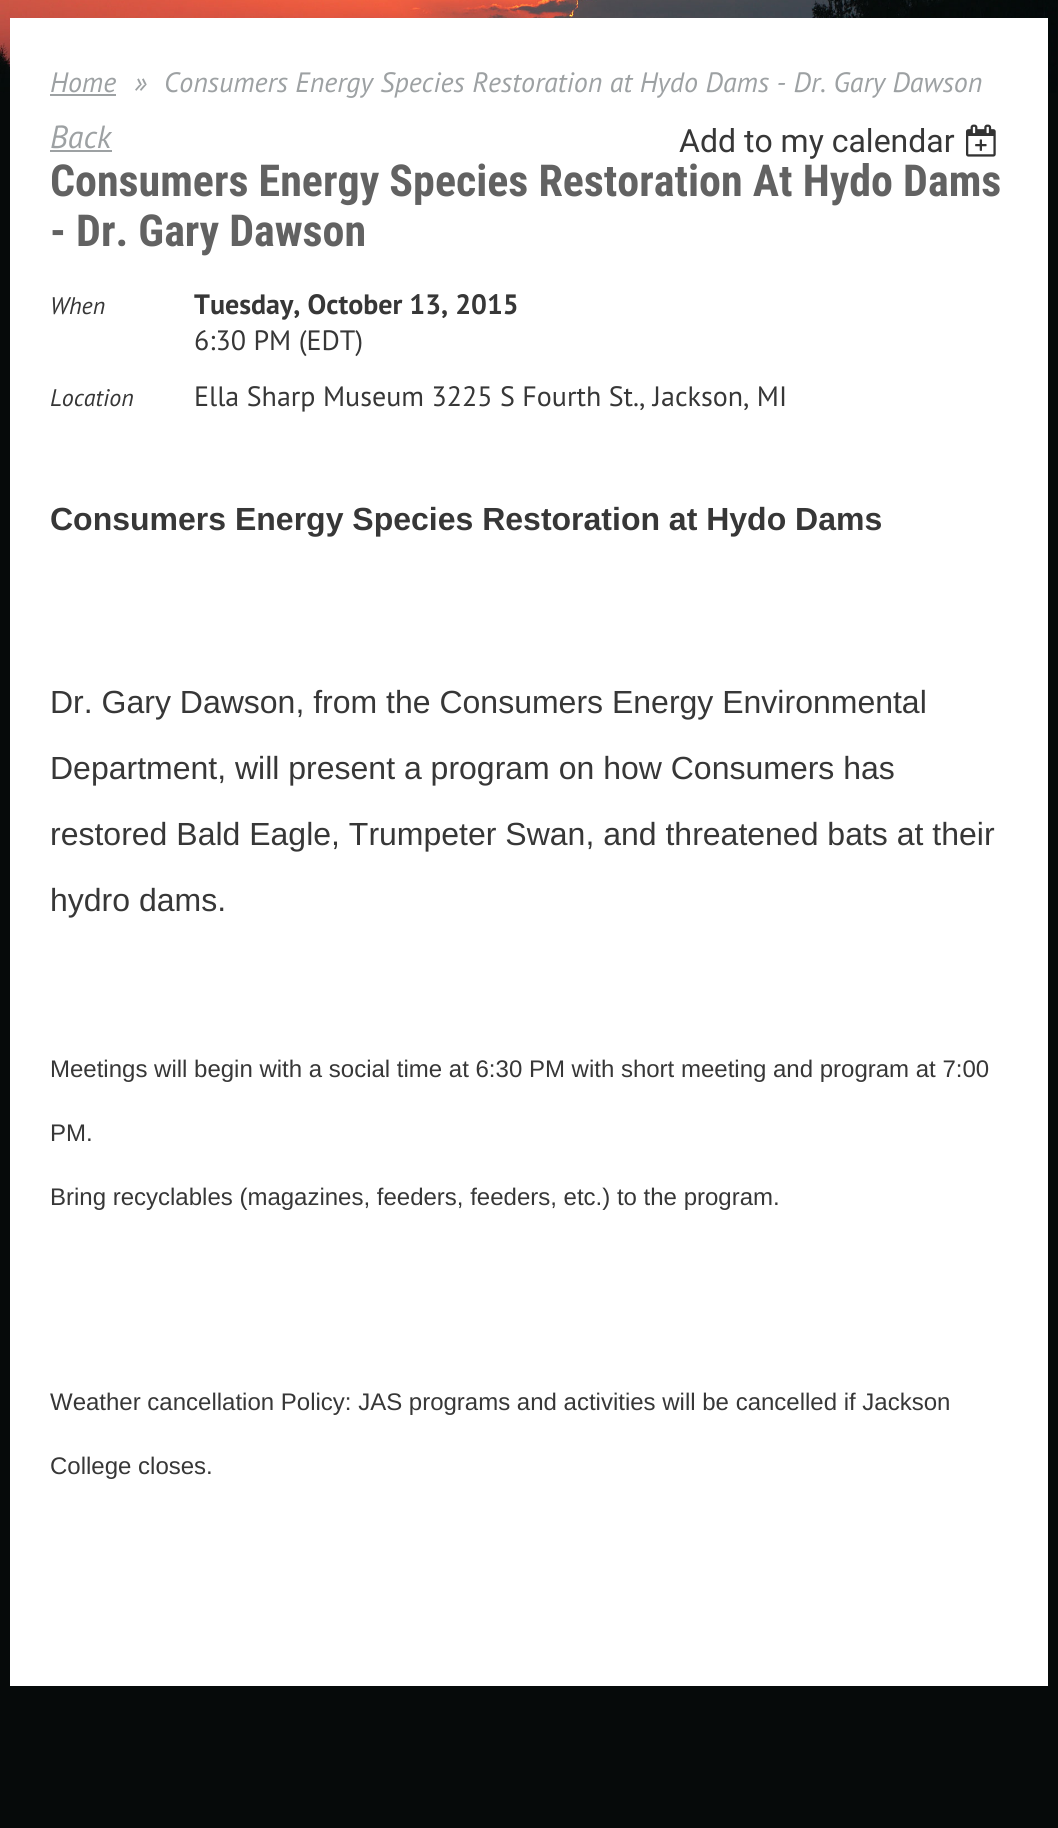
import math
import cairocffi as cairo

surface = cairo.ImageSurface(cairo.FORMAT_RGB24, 1058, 1828)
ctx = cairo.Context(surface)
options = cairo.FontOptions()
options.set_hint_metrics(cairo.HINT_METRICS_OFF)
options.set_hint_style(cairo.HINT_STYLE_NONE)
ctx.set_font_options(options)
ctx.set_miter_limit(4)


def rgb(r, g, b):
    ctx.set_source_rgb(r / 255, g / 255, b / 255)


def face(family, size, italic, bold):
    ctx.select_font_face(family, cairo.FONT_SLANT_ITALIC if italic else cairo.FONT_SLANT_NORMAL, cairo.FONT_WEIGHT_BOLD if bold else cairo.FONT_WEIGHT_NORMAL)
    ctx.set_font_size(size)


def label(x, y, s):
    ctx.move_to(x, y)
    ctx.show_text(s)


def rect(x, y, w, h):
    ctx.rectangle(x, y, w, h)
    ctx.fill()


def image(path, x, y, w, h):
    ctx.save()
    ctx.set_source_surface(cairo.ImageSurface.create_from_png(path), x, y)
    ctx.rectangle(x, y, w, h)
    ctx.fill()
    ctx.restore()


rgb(6, 10, 10)
ctx.paint()
image('image0.png', 0, 0, 1057, 93)
rgb(255, 255, 255)
rect(10, 18, 1038, 1668)
face('PT Sans', 28, 1, 0)
rgb(157, 161, 163)
label(50, 92, 'Home')
rect(50, 94, 66, 2)
label(134, 92, '»')
label(164, 92, 'Consumers Energy Species Restoration at Hydo Dams - Dr. Gary Dawson')
face('PT Sans', 32, 1, 0)
label(50, 148, 'Back')
rect(50, 150, 62, 2)
face('Roboto', 32, 0, 0)
rgb(55, 55, 55)
label(679, 152, 'Add to my calendar')
image('image1.png', 966, 124, 30, 33)
face('Roboto Condensed', 44, 0, 1)
rgb(98, 98, 98)
label(50, 196, 'Consumers Energy Species Restoration At Hydo Dams')
label(50, 246, '- Dr. Gary Dawson')
face('PT Sans', 24, 1, 0)
rgb(55, 55, 55)
label(50, 314, 'When')
face('PT Sans', 28, 0, 1)
label(194, 314, 'Tuesday, October 13, 2015')
face('PT Sans', 28, 0, 0)
label(194, 350, '6:30 PM (EDT)')
face('PT Sans', 24, 1, 0)
label(50, 406, 'Location')
face('PT Sans', 28, 0, 0)
label(194, 406, 'Ella Sharp Museum 3225 S Fourth St., Jackson, MI')
face('Liberation Sans', 32, 0, 1)
label(50, 530, 'Consumers Energy Species Restoration at Hydo Dams')
face('Liberation Sans', 32, 0, 0)
label(50, 713, 'Dr. Gary Dawson, from the Consumers Energy Environmental')
label(50, 779, 'Department, will present a program on how Consumers has')
label(50, 845, 'restored Bald Eagle, Trumpeter Swan, and threatened bats at their')
label(50, 911, 'hydro dams.')
face('Liberation Sans', 24, 0, 0)
label(50, 1077, 'Meetings will begin with a social time at 6:30 PM with short meeting and program at 7:00')
label(50, 1141, 'PM.')
label(50, 1205, 'Bring recyclables (magazines, feeders, feeders, etc.) to the program.')
label(50, 1410, 'Weather cancellation Policy: JAS programs and activities will be cancelled if Jackson')
label(50, 1474, 'College closes.')
surface.write_to_png('render.png')
